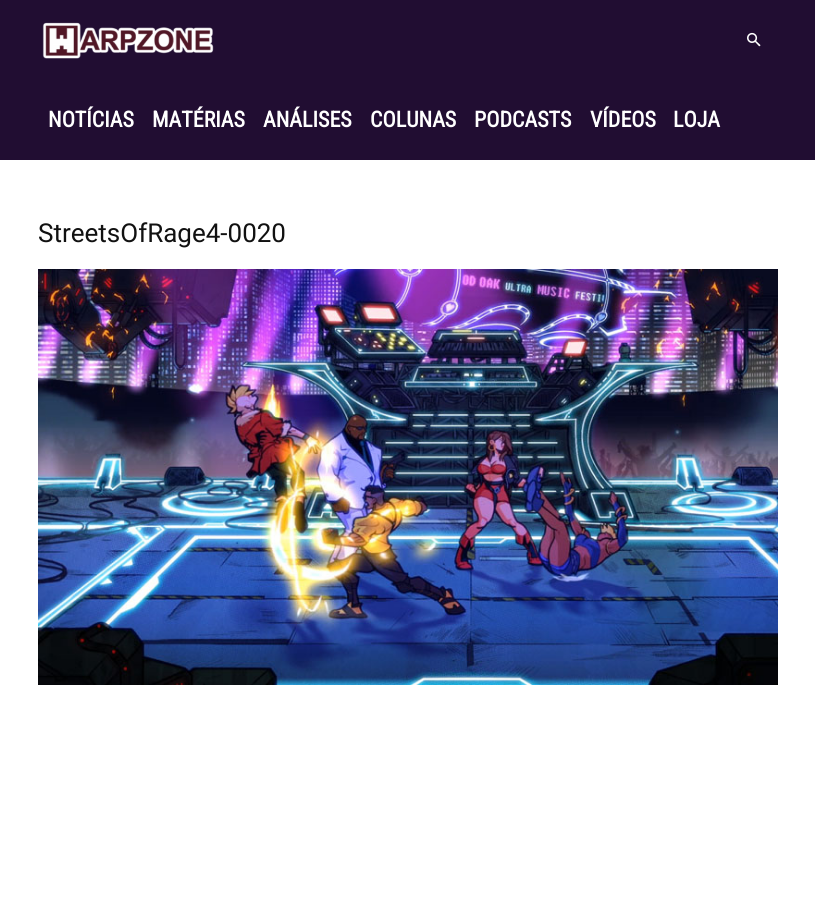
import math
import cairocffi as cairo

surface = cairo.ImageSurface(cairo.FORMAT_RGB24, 815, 907)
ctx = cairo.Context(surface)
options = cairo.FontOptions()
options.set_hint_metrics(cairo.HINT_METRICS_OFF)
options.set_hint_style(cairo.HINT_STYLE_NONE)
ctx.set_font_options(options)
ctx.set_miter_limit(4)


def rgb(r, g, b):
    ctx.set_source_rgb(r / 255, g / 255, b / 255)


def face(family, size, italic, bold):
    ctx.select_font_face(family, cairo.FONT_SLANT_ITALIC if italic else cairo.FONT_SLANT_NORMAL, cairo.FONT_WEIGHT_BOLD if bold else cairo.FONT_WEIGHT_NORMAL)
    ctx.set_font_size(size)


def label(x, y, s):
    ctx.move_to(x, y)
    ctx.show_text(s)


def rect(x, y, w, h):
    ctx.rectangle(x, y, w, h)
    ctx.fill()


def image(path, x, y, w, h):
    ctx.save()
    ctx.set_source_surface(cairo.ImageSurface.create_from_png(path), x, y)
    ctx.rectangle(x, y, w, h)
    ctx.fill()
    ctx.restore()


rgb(255, 255, 255)
ctx.paint()
rgb(33, 13, 50)
rect(0, 0, 815, 160)
image('image0.png', 747, 32, 14, 15)
image('image1.png', 42, 22, 172, 37)
face('Roboto Condensed', 22, 0, 1)
rgb(255, 255, 255)
label(48, 127, 'NOTÍCIAS')
label(152, 127, 'MATÉRIAS')
label(263, 127, 'ANÁLISES')
label(370, 127, 'COLUNAS')
label(474, 127, 'PODCASTS')
label(590, 127, 'VÍDEOS')
label(673, 127, 'LOJA')
face('Roboto', 26, 0, 0)
rgb(17, 17, 17)
label(38, 242, 'StreetsOfRage4-0020')
image('image2.png', 38, 269, 740, 416)
surface.write_to_png('render.png')
